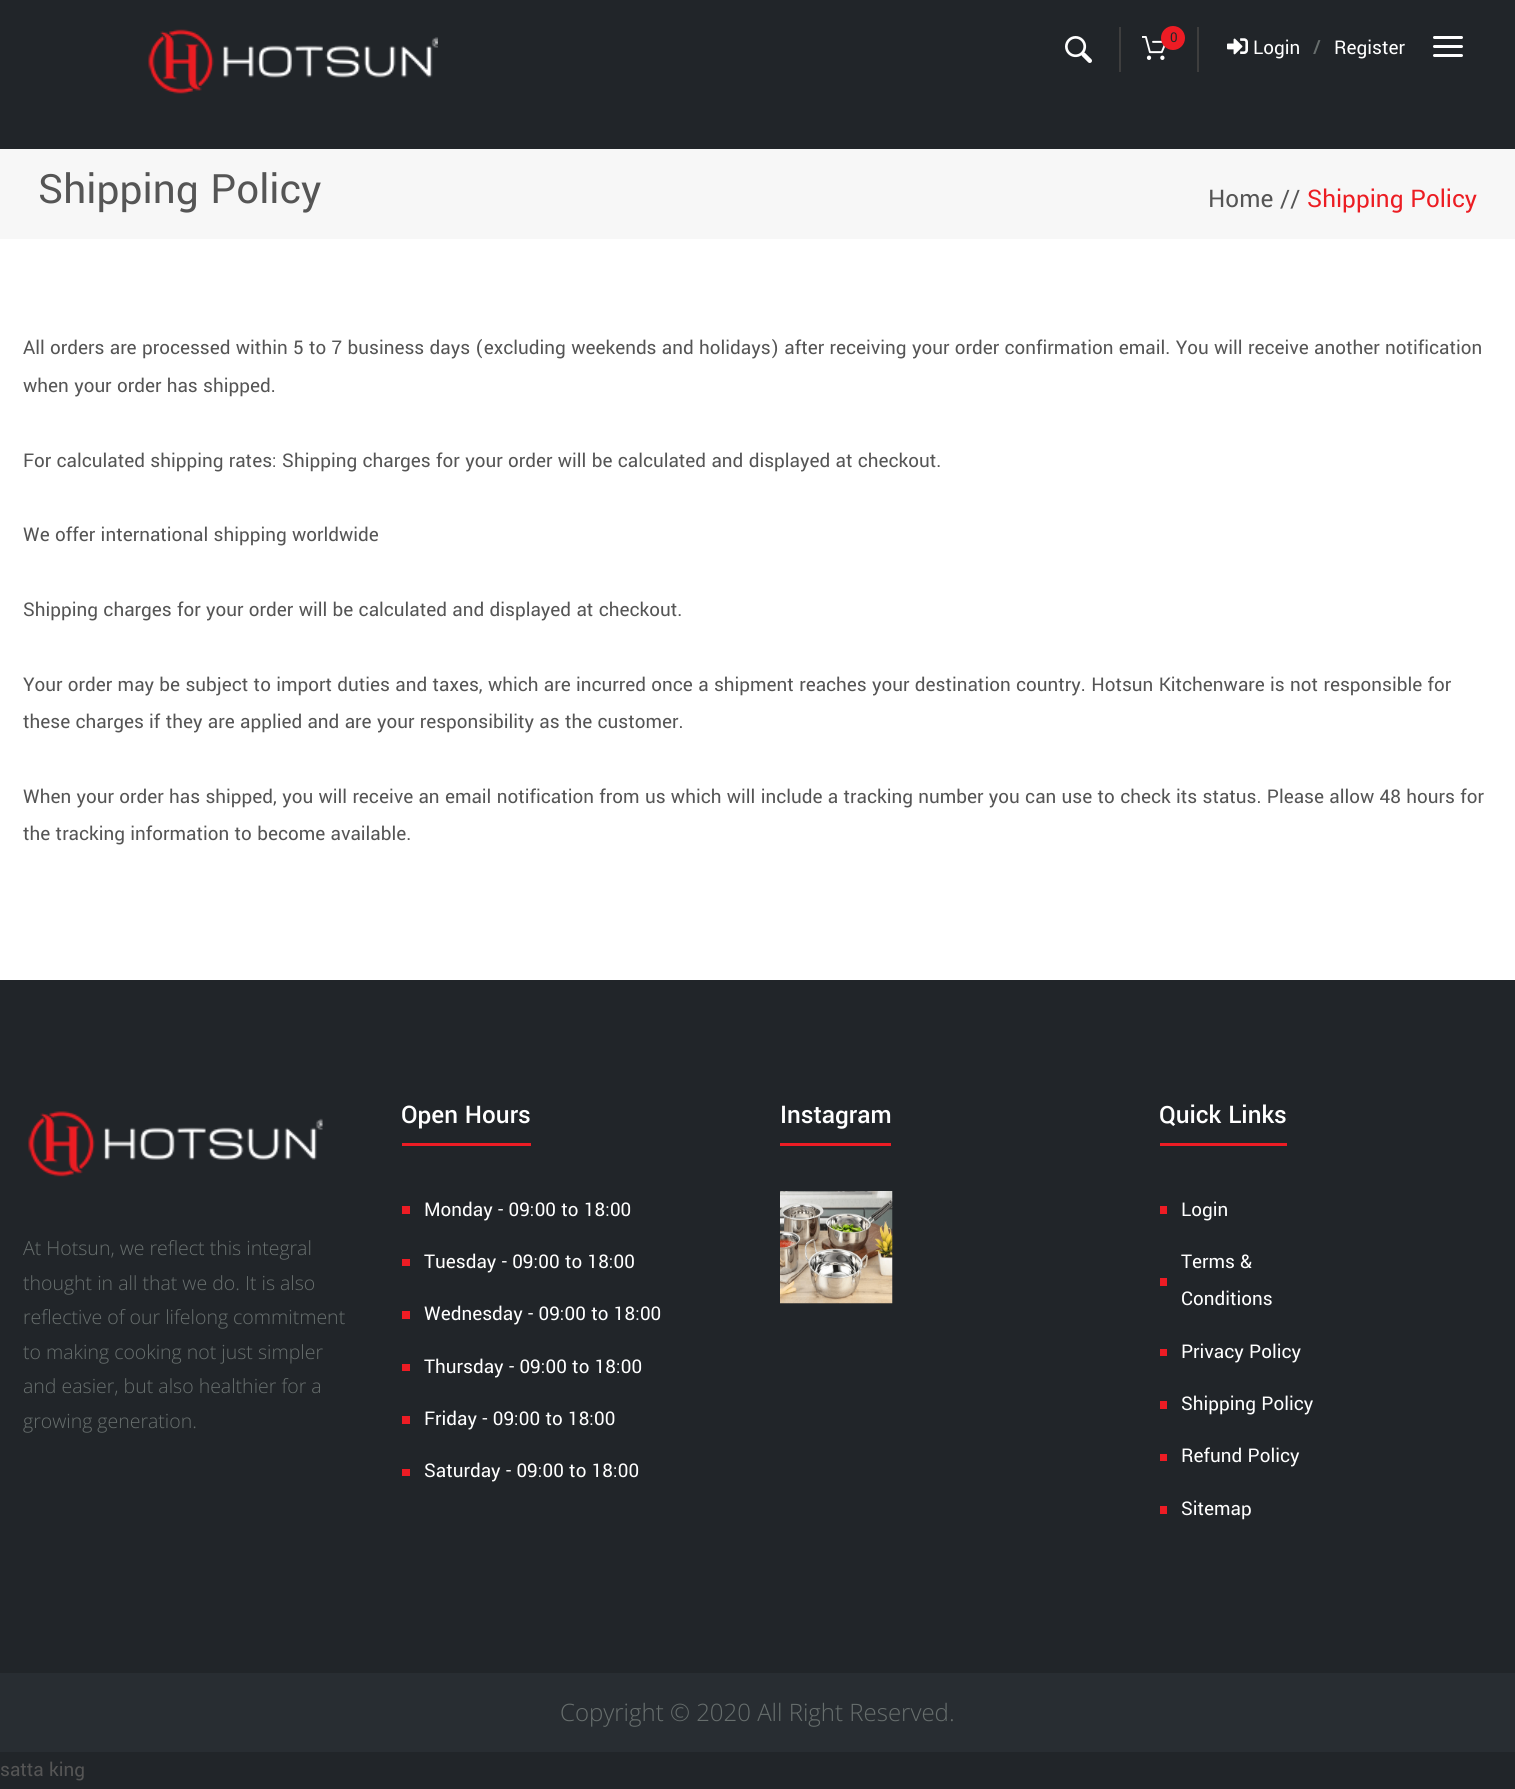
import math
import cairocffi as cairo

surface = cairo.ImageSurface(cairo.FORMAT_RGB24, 1515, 1789)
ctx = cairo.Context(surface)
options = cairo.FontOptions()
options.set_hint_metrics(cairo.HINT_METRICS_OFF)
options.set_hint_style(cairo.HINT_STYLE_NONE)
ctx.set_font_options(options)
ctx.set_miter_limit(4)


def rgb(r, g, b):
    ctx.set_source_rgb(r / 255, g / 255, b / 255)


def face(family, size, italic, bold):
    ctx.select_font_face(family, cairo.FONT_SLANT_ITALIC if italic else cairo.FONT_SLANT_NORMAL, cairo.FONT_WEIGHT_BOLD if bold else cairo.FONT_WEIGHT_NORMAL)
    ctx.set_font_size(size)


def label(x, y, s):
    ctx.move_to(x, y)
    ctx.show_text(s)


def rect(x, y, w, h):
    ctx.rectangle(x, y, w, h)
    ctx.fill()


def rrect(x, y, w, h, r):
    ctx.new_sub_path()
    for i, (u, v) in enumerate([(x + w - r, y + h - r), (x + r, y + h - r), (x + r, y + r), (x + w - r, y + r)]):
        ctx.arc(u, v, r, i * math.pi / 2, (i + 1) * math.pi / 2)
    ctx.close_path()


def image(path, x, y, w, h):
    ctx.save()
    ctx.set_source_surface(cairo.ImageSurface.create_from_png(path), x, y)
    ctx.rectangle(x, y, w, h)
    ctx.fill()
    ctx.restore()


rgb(33, 37, 41)
ctx.paint()
image('image0.png', 148, 29, 290, 65)
image('image1.png', 1065, 36, 27, 27)
rgb(62, 62, 62)
rect(1119, 27, 2, 45)
image('image2.png', 1142, 36, 24, 24)
rgb(237, 28, 36)
ctx.arc(1173, 38, 12, 0, 2 * math.pi)
ctx.fill()
face('Yantramanav', 15, 0, 0)
rgb(33, 38, 41)
label(1170, 42, '0')
rgb(62, 62, 62)
rect(1197, 27, 2, 45)
image('image3.png', 1227, 38, 21, 17)
face('Yantramanav', 21, 0, 0)
rgb(255, 255, 255)
label(1253, 54, 'Login')
face('Open Sans SemiBold', 19.5, 0, 0)
rgb(103, 110, 109)
label(1313, 54, '/')
face('Yantramanav', 21, 0, 0)
rgb(255, 255, 255)
label(1334, 54, 'Register')
rrect(1433, 36, 30, 3, 1.5)
ctx.fill()
rrect(1433, 45, 30, 3, 1.5)
ctx.fill()
rrect(1433, 54, 30, 3, 1.5)
ctx.fill()
rgb(247, 247, 247)
rect(0, 149, 1515, 90)
face('Yantramanav', 45, 0, 0)
rgb(85, 85, 85)
label(38, 203, 'Shipping Policy')
face('Yantramanav', 27, 0, 0)
label(1208, 207, 'Home //')
rgb(236, 29, 35)
label(1307, 207, 'Shipping Policy')
rgb(255, 255, 255)
rect(0, 239, 1515, 741)
face('Yantramanav', 21, 0, 0)
rgb(85, 85, 85)
label(23, 354, 'All orders are processed within 5 to 7 business days (excluding weekends and holidays) after receiving your order confirmation email. You will receive another notification')
label(23, 392, 'when your order has shipped.')
label(23, 467, 'For calculated shipping rates: Shipping charges for your order will be calculated and displayed at checkout.')
label(23, 541, 'We offer international shipping worldwide')
label(23, 616, 'Shipping charges for your order will be calculated and displayed at checkout.')
label(23, 691, 'Your order may be subject to import duties and taxes, which are incurred once a shipment reaches your destination country. Hotsun Kitchenware is not responsible for')
label(23, 728, 'these charges if they are applied and are your responsibility as the customer.')
label(23, 803, 'When your order has shipped, you will receive an email notification from us which will include a tracking number you can use to check its status. Please allow 48 hours for')
label(23, 840, 'the tracking information to become available.')
face('Yantramanav Medium', 27, 0, 0)
rgb(255, 255, 255)
label(401, 1123, 'Open Hours')
rgb(237, 28, 36)
rect(402, 1143, 129, 3)
rect(402, 1206, 8, 8)
face('Yantramanav', 21, 0, 0)
rgb(255, 255, 255)
label(424, 1216, 'Monday - 09:00 to 18:00')
rgb(237, 28, 36)
rect(402, 1259, 8, 7)
rgb(255, 255, 255)
label(424, 1268, 'Tuesday - 09:00 to 18:00')
rgb(237, 28, 36)
rect(402, 1311, 8, 8)
rgb(255, 255, 255)
label(424, 1320, 'Wednesday - 09:00 to 18:00')
rgb(237, 28, 36)
rect(402, 1364, 8, 7)
rgb(255, 255, 255)
label(424, 1373, 'Thursday - 09:00 to 18:00')
rgb(237, 28, 36)
rect(402, 1416, 8, 8)
rgb(255, 255, 255)
label(424, 1425, 'Friday - 09:00 to 18:00')
rgb(237, 28, 36)
rect(402, 1469, 8, 7)
rgb(255, 255, 255)
label(424, 1477, 'Saturday - 09:00 to 18:00')
face('Yantramanav Medium', 27, 0, 0)
label(780, 1123, 'Instagram')
rgb(237, 28, 36)
rect(780, 1143, 111, 3)
image('image4.png', 780, 1191, 113, 113)
rgb(255, 255, 255)
label(1159, 1123, 'Quick Links')
rgb(237, 28, 36)
rect(1160, 1143, 127, 3)
rect(1160, 1206, 7, 8)
face('Yantramanav', 21, 0, 0)
rgb(255, 255, 255)
label(1181, 1216, 'Login')
label(1181, 1268, 'Terms &')
rgb(237, 28, 36)
rect(1160, 1278, 7, 8)
rgb(255, 255, 255)
label(1181, 1305, 'Conditions')
rgb(237, 28, 36)
rect(1160, 1349, 7, 7)
rgb(255, 255, 255)
label(1181, 1358, 'Privacy Policy')
rgb(237, 28, 36)
rect(1160, 1401, 7, 8)
rgb(255, 255, 255)
label(1181, 1410, 'Shipping Policy')
rgb(237, 28, 36)
rect(1160, 1454, 7, 7)
rgb(255, 255, 255)
label(1181, 1462, 'Refund Policy')
rgb(237, 28, 36)
rect(1160, 1506, 7, 8)
rgb(255, 255, 255)
label(1181, 1515, 'Sitemap')
image('image5.png', 28, 1111, 295, 66)
face('Open Sans Light', 19.5, 0, 0)
rgb(103, 110, 109)
label(23, 1255, 'At Hotsun, we reflect this integral')
label(23, 1290, 'thought in all that we do. It is also')
label(23, 1324, 'reflective of our lifelong commitment')
label(23, 1359, 'to making cooking not just simpler')
label(23, 1393, 'and easier, but also healthier for a')
label(23, 1428, 'growing generation.')
rgb(40, 45, 50)
rect(0, 1673, 1515, 79)
face('Open Sans Light', 24, 0, 0)
rgb(103, 110, 109)
label(560, 1721, 'Copyright © 2020 All Right Reserved.')
face('Yantramanav', 21, 0, 0)
rgb(85, 85, 85)
label(0, 1776, 'satta king')
surface.write_to_png('render.png')
